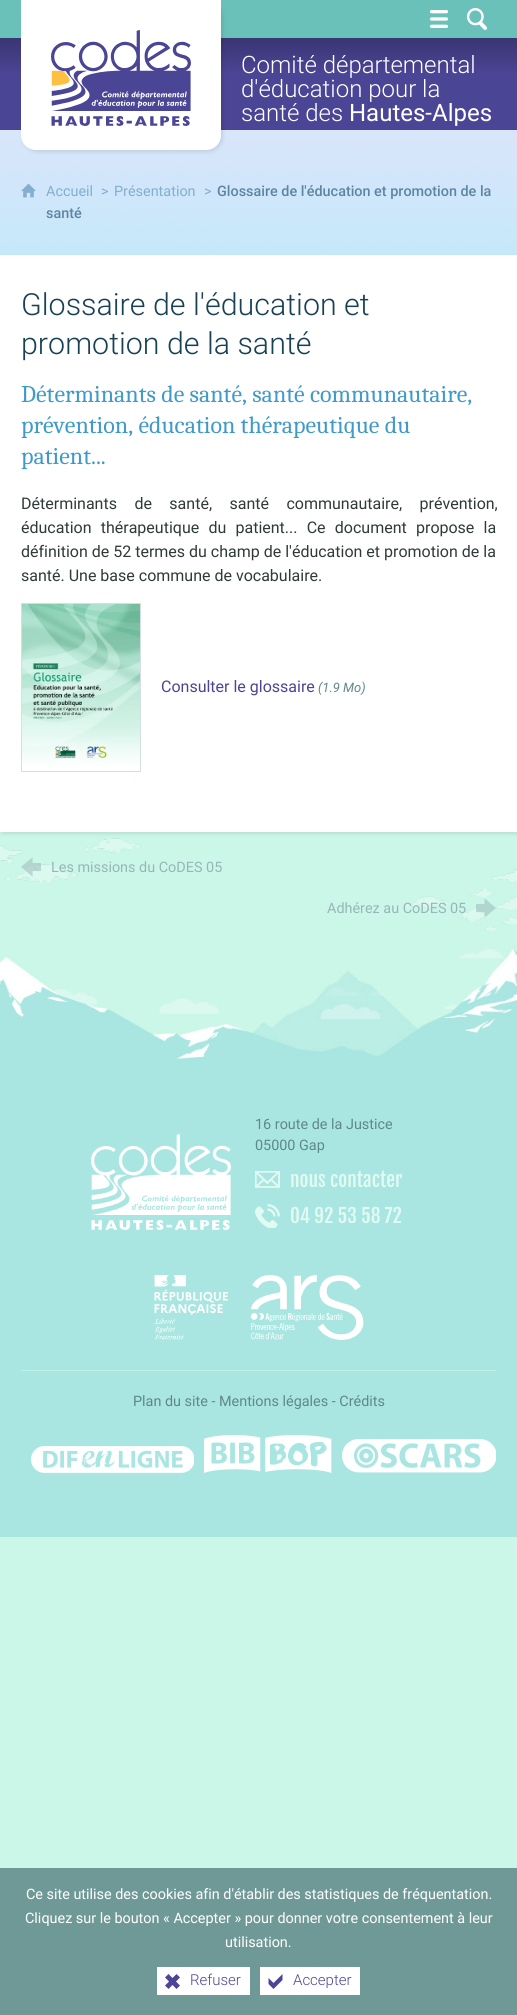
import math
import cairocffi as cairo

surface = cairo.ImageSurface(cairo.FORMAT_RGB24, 517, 2015)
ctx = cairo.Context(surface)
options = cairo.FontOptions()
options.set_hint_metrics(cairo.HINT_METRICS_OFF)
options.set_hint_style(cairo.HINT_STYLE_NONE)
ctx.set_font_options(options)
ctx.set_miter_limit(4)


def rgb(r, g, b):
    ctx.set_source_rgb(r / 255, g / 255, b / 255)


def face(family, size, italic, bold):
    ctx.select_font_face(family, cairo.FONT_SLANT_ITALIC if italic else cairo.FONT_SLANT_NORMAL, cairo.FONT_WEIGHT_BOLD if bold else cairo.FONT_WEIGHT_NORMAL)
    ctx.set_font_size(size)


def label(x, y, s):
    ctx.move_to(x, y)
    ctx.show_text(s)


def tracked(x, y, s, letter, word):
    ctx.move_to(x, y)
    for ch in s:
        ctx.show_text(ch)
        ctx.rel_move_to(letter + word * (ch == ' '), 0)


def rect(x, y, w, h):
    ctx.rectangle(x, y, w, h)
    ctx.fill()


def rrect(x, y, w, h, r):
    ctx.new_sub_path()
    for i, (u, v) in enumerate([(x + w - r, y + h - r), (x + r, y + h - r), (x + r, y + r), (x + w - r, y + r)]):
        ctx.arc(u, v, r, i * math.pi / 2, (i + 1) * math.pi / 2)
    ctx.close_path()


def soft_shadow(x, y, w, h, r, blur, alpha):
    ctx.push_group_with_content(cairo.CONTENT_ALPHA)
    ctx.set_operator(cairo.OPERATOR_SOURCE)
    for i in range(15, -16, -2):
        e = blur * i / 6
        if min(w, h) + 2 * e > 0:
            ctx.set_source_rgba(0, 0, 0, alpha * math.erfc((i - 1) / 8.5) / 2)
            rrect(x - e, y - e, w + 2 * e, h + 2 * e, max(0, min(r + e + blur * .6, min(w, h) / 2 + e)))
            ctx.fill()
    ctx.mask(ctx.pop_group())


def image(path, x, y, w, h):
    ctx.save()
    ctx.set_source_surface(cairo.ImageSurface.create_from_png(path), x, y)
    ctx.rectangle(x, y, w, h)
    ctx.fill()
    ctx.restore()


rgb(203, 247, 232)
ctx.paint()
image('image0.png', 0, 130, 517, 125)
rgb(106, 193, 186)
rect(0, 0, 517, 38)
image('image1.png', 429, 10, 20, 18)
image('image2.png', 466, 8, 21, 22)
gradient = cairo.LinearGradient(259, 38, 259, 130)
gradient.add_color_stop_rgba(0, 0.227, 0.208, 0.451, 1)
gradient.add_color_stop_rgba(0.4, 0.294, 0.271, 0.588, 1)
ctx.set_source(gradient)
rect(0, 38, 517, 92)
rgb(0, 0, 0)
soft_shadow(23, 2, 200, 150, 15, 2, 0.1)
rgb(255, 255, 255)
ctx.new_path()
ctx.move_to(21, 0)
ctx.line_to(221, 0)
ctx.line_to(221, 135)
ctx.curve_to(221, 143.5, 214.5, 150, 206, 150)
ctx.line_to(36, 150)
ctx.curve_to(27.5, 150, 21, 143.5, 21, 135)
ctx.close_path()
ctx.fill()
image('image3.png', 51, 30, 140, 96)
face('Roboto Light', 24, 0, 0)
label(241, 73, 'Comité départemental')
label(241, 97, 'd\'éducation pour la')
label(241, 121, 'santé des')
face('Roboto', 24, 0, 0)
label(349, 121, 'Hautes-Alpes')
image('image4.png', 21, 183, 15, 15)
face('Roboto', 14.4, 0, 0)
rgb(131, 174, 205)
label(46, 196, 'Accueil')
label(101, 196, '>')
label(114, 196, 'Présentation')
label(204, 196, '>')
face('Roboto Medium', 14.4, 0, 0)
rgb(93, 133, 162)
label(217, 196, 'Glossaire de l\'éducation et promotion de la')
label(46, 218, 'santé')
image('image9.png', 0, 838, 517, 93)
rgb(0, 0, 0)
soft_shadow(2, 257, 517, 577, 0, 2, 0.1)
rgb(255, 255, 255)
rect(0, 255, 517, 577)
face('Roboto Light', 30.4, 0, 0)
rgb(25, 65, 85)
label(21, 315, 'Glossaire de l\'éducation et')
label(21, 354, 'promotion de la santé')
face('Caladea', 24, 0, 0)
rgb(64, 154, 199)
label(21, 402, 'Déterminants de santé, santé communautaire,')
label(21, 433, 'prévention, éducation thérapeutique du')
label(21, 464, 'patient...')
face('Roboto', 16, 0, 0)
rgb(47, 58, 57)
tracked(21, 509, 'Déterminants de santé, santé communautaire, prévention,', 0, 13.5)
tracked(21, 533, 'éducation thérapeutique du patient... Ce document propose la', 0, 5.25)
label(21, 557, 'définition de 52 termes du champ de l\'éducation et promotion de la')
label(21, 581, 'santé. Une base commune de vocabulaire.')
ctx.rectangle(21.5, 603.5, 119, 168)
rgb(211, 224, 224)
ctx.set_line_width(1)
ctx.stroke()
image('image5.png', 22, 604, 118, 162)
rgb(75, 69, 150)
label(161, 692, 'Consulter le glossaire')
face('Roboto', 13, 1, 0)
rgb(95, 136, 136)
label(318, 692, '(1.9 Mo)')
image('image6.png', 21, 857, 20, 20)
face('Roboto', 14.4, 0, 0)
rgb(151, 182, 182)
label(51, 872, 'Les missions du CoDES 05')
label(327, 913, 'Adhérez au CoDES 05')
image('image7.png', 476, 898, 20, 20)
rgb(169, 230, 225)
rect(0, 1061, 517, 476)
image('image8.png', 0, 944, 517, 117)
image('image10.png', 91, 1134, 140, 96)
rgb(95, 136, 136)
label(255, 1129, '16 route de la Justice')
label(255, 1150, '05000 Gap')
image('image11.png', 255, 1171, 25, 17)
face('Fjalla One', 19.25, 0, 0)
rgb(225, 250, 242)
label(290, 1187, 'nous contacter')
image('image12.png', 255, 1204, 25, 24)
label(290, 1223, '04 92 53 58 72')
image('image13.png', 154, 1275, 210, 65)
rgb(193, 242, 230)
rect(21, 1370, 475, 1)
face('Roboto', 14.4, 0, 0)
rgb(95, 136, 136)
label(133, 1406, 'Plan du site - Mentions légales - Crédits')
image('image14.png', 31, 1446, 163, 27)
image('image15.png', 204, 1435, 128, 38)
image('image16.png', 342, 1439, 154, 34)
rgb(111, 153, 150)
rect(0, 1868, 517, 147)
rgb(255, 255, 255)
label(26, 1899, 'Ce site utilise des cookies afin d\'établir des statistiques de fréquentation.')
label(25, 1923, 'Cliquez sur le bouton « Accepter » pour donner votre consentement à leur')
label(225, 1947, 'utilisation.')
rect(157, 1967, 93, 28)
image('image17.png', 165, 1974, 15, 15)
face('Roboto Light', 15, 0, 0)
rgb(75, 69, 150)
label(190, 1985, 'Refuser')
rgb(255, 255, 255)
rect(260, 1967, 100, 28)
image('image18.png', 268, 1974, 15, 15)
rgb(75, 69, 150)
label(293, 1985, 'Accepter')
surface.write_to_png('render.png')
